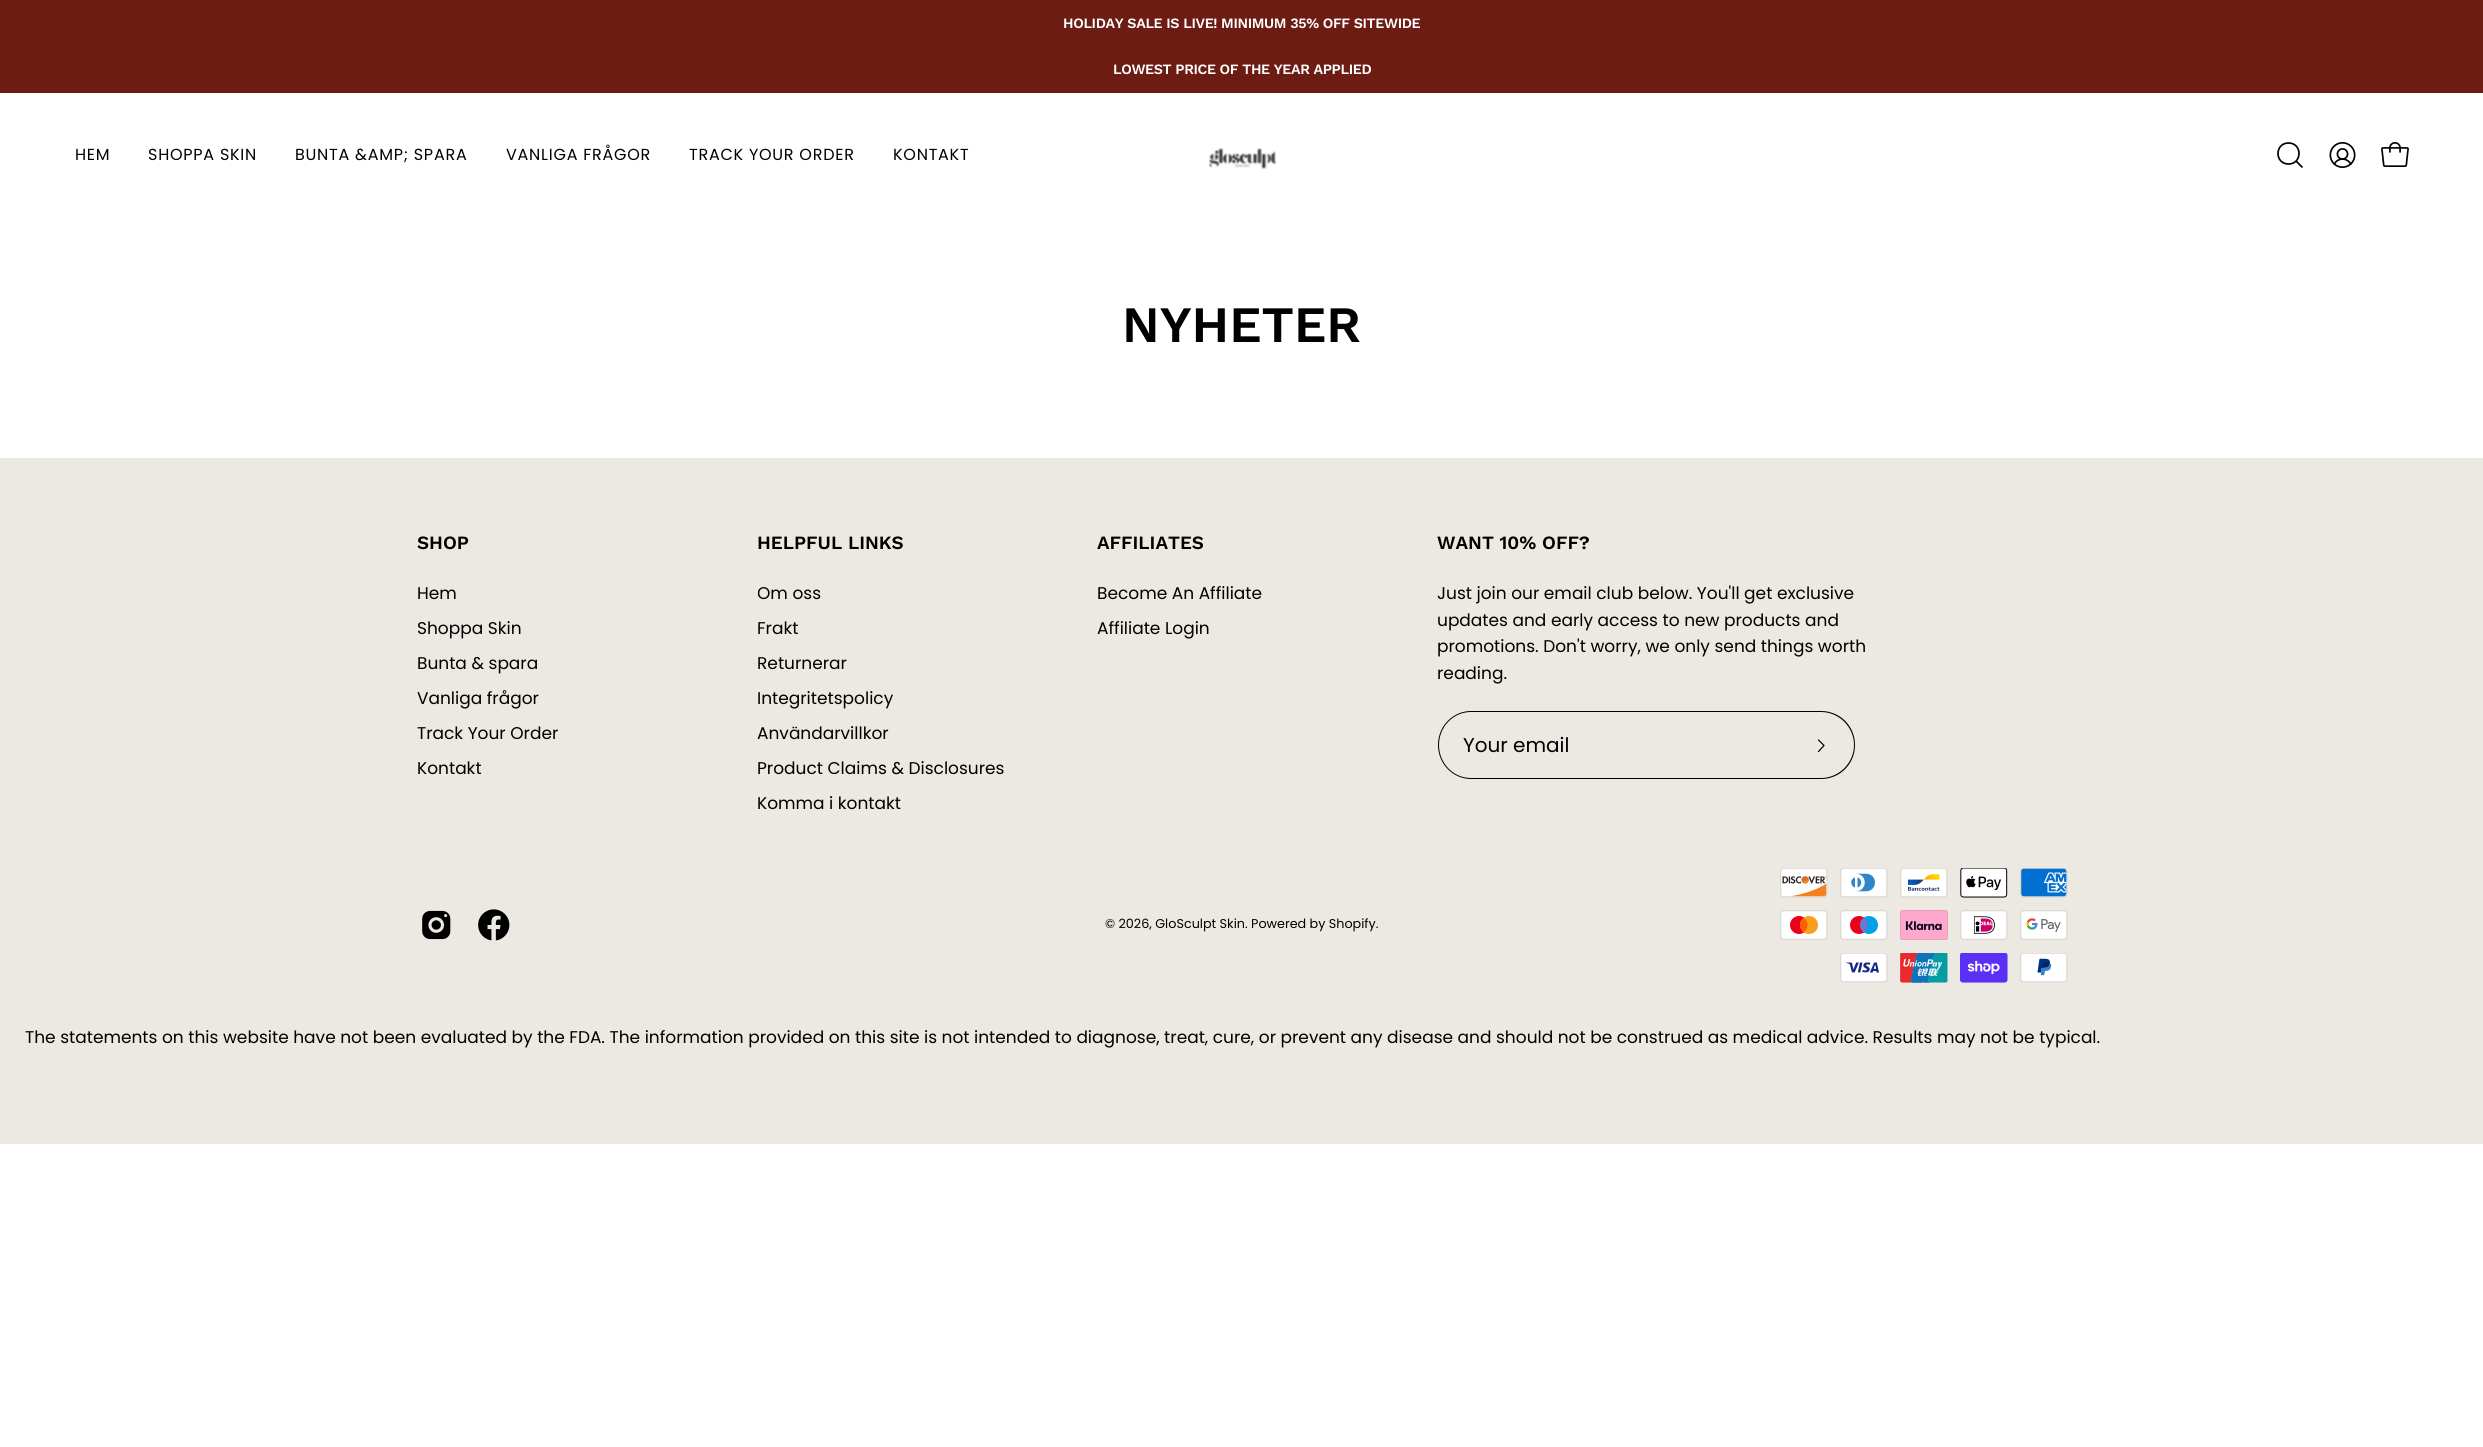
import math
import cairocffi as cairo

surface = cairo.ImageSurface(cairo.FORMAT_RGB24, 2483, 1447)
ctx = cairo.Context(surface)
options = cairo.FontOptions()
options.set_hint_metrics(cairo.HINT_METRICS_OFF)
options.set_hint_style(cairo.HINT_STYLE_NONE)
ctx.set_font_options(options)
ctx.set_miter_limit(4)


def rgb(r, g, b):
    ctx.set_source_rgb(r / 255, g / 255, b / 255)


def face(family, size, italic, bold):
    ctx.select_font_face(family, cairo.FONT_SLANT_ITALIC if italic else cairo.FONT_SLANT_NORMAL, cairo.FONT_WEIGHT_BOLD if bold else cairo.FONT_WEIGHT_NORMAL)
    ctx.set_font_size(size)


def label(x, y, s):
    ctx.move_to(x, y)
    ctx.show_text(s)


def tracked(x, y, s, letter, word):
    ctx.move_to(x, y)
    for ch in s:
        ctx.show_text(ch)
        ctx.rel_move_to(letter + word * (ch == ' '), 0)


def rect(x, y, w, h):
    ctx.rectangle(x, y, w, h)
    ctx.fill()


def image(path, x, y, w, h):
    ctx.save()
    ctx.set_source_surface(cairo.ImageSurface.create_from_png(path), x, y)
    ctx.rectangle(x, y, w, h)
    ctx.fill()
    ctx.restore()


rgb(255, 255, 255)
ctx.paint()
rgb(109, 28, 20)
rect(0, 0, 2483, 93)
face('Work Sans SemiBold', 14.25, 0, 0)
rgb(255, 255, 255)
tracked(1063, 28, 'HOLIDAY SALE IS LIVE! MINIMUM 35% OFF SITEWIDE', -0.35, 0)
tracked(1113, 74, 'LOWEST PRICE OF THE YEAR APPLIED', -0.35, 0)
face('Poppins', 16, 0, 0)
rgb(0, 0, 0)
tracked(75, 160, 'HEM', 0.75, 0)
tracked(148, 160, 'SHOPPA SKIN', 0.75, 0)
tracked(295, 160, 'BUNTA &AMP; SPARA', 0.75, 0)
tracked(506, 160, 'VANLIGA FRÅGOR', 0.75, 0)
tracked(689, 160, 'TRACK YOUR ORDER', 0.75, 0)
tracked(893, 160, 'KONTAKT', 0.75, 0)
ctx.new_path()
ctx.move_to(2288.5, 164)
ctx.curve_to(2302.5, 164, 2302.5, 143, 2288.5, 143)
ctx.curve_to(2274.5, 143, 2274.5, 164, 2288.5, 164)
ctx.close_path()
ctx.move_to(2296, 161)
ctx.line_to(2302, 167)
ctx.set_line_width(1.7)
ctx.set_line_cap(cairo.LINE_CAP_ROUND)
ctx.set_line_join(cairo.LINE_JOIN_ROUND)
ctx.stroke()
image('image0.png', 2329, 142, 27, 26)
image('image1.png', 2381, 142, 28, 25)
image('image2.png', 1208, 148, 69, 22)
face('Work Sans SemiBold', 51, 0, 0)
label(1122, 342, 'NYHETER')
rgb(236, 232, 226)
rect(0, 458, 2483, 686)
face('Work Sans SemiBold', 18.75, 0, 0)
rgb(0, 0, 0)
label(417, 549, 'SHOP')
face('Poppins', 17, 0, 0)
label(417, 599, 'Hem')
label(417, 634, 'Shoppa Skin')
label(417, 669, 'Bunta & spara')
label(417, 704, 'Vanliga frågor')
label(417, 739, 'Track Your Order')
label(417, 774, 'Kontakt')
face('Work Sans SemiBold', 18.75, 0, 0)
label(757, 549, 'HELPFUL LINKS')
ctx.save()
ctx.rectangle(758, 580, 290, 238)
ctx.clip()
face('Poppins', 17, 0, 0)
label(757, 599, 'Om oss')
ctx.restore()
face('Poppins', 17, 0, 0)
label(757, 634, 'Frakt')
label(757, 669, 'Returnerar')
label(757, 704, 'Integritetspolicy')
label(757, 739, 'Användarvillkor')
label(757, 774, 'Product Claims & Disclosures')
label(757, 809, 'Komma i kontakt')
face('Work Sans SemiBold', 18.75, 0, 0)
label(1097, 549, 'AFFILIATES')
face('Poppins', 17, 0, 0)
label(1097, 599, 'Become An Affiliate')
label(1097, 634, 'Affiliate Login')
face('Work Sans SemiBold', 18.75, 0, 0)
label(1437, 549, 'WANT 10% OFF?')
face('Poppins', 17, 0, 0)
label(1437, 599, 'Just join our email club below. You\'ll get exclusive')
label(1437, 626, 'updates and early access to new products and')
label(1437, 652, 'promotions. Don\'t worry, we only send things worth')
label(1437, 679, 'reading.')
ctx.set_fill_rule(cairo.FILL_RULE_EVEN_ODD)
ctx.new_path()
ctx.move_to(1471, 711)
ctx.line_to(1788, 711)
ctx.line_to(1788, 779)
ctx.line_to(1471, 779)
ctx.curve_to(1453, 779, 1438, 764, 1438, 745)
ctx.curve_to(1438, 726, 1453, 711, 1471, 711)
ctx.close_path()
ctx.move_to(1471, 712)
ctx.line_to(1788, 712)
ctx.line_to(1788, 778)
ctx.line_to(1471, 778)
ctx.curve_to(1453, 778, 1439, 763, 1439, 745)
ctx.curve_to(1439, 727, 1453, 712, 1471, 712)
ctx.close_path()
ctx.fill()
face('Poppins', 20, 0, 0)
label(1463, 752, 'Your email')
ctx.new_path()
ctx.move_to(1788, 711)
ctx.line_to(1821, 711)
ctx.curve_to(1840, 711, 1855, 726, 1855, 745)
ctx.curve_to(1855, 764, 1840, 779, 1821, 779)
ctx.line_to(1788, 779)
ctx.close_path()
ctx.move_to(1788, 712)
ctx.line_to(1821, 712)
ctx.curve_to(1839, 712, 1854, 727, 1854, 745)
ctx.curve_to(1854, 763, 1839, 778, 1821, 778)
ctx.line_to(1788, 778)
ctx.close_path()
ctx.fill()
ctx.new_path()
ctx.move_to(1818.5, 740)
ctx.line_to(1824, 745.5)
ctx.line_to(1818.5, 751.5)
ctx.set_line_width(1.2)
ctx.stroke()
image('image3.png', 422, 910, 29, 30)
image('image4.png', 478, 909, 32, 32)
face('Poppins', 12.75, 0, 0)
label(1105, 928, '© 2026, GloSculpt Skin. Powered by Shopify.')
image('image5.png', 1780, 868, 48, 30)
image('image6.png', 1840, 868, 48, 30)
image('image7.png', 1900, 868, 48, 30)
image('image8.png', 1960, 868, 48, 30)
image('image9.png', 2020, 868, 48, 30)
image('image10.png', 1780, 910, 48, 30)
image('image11.png', 1840, 910, 48, 30)
image('image12.png', 1900, 910, 48, 30)
image('image13.png', 1960, 910, 48, 30)
image('image14.png', 2020, 910, 48, 30)
image('image15.png', 1840, 953, 48, 30)
image('image16.png', 1900, 953, 48, 30)
image('image17.png', 1960, 953, 48, 30)
image('image18.png', 2020, 953, 48, 30)
face('Poppins', 17, 0, 0)
label(25, 1043, 'The statements on this website have not been evaluated by the FDA. The information provided on this site is not intended to diagnose, treat, cure, or prevent any disease and should not be construed as medical advice. Results may not be typical.')
surface.write_to_png('render.png')
